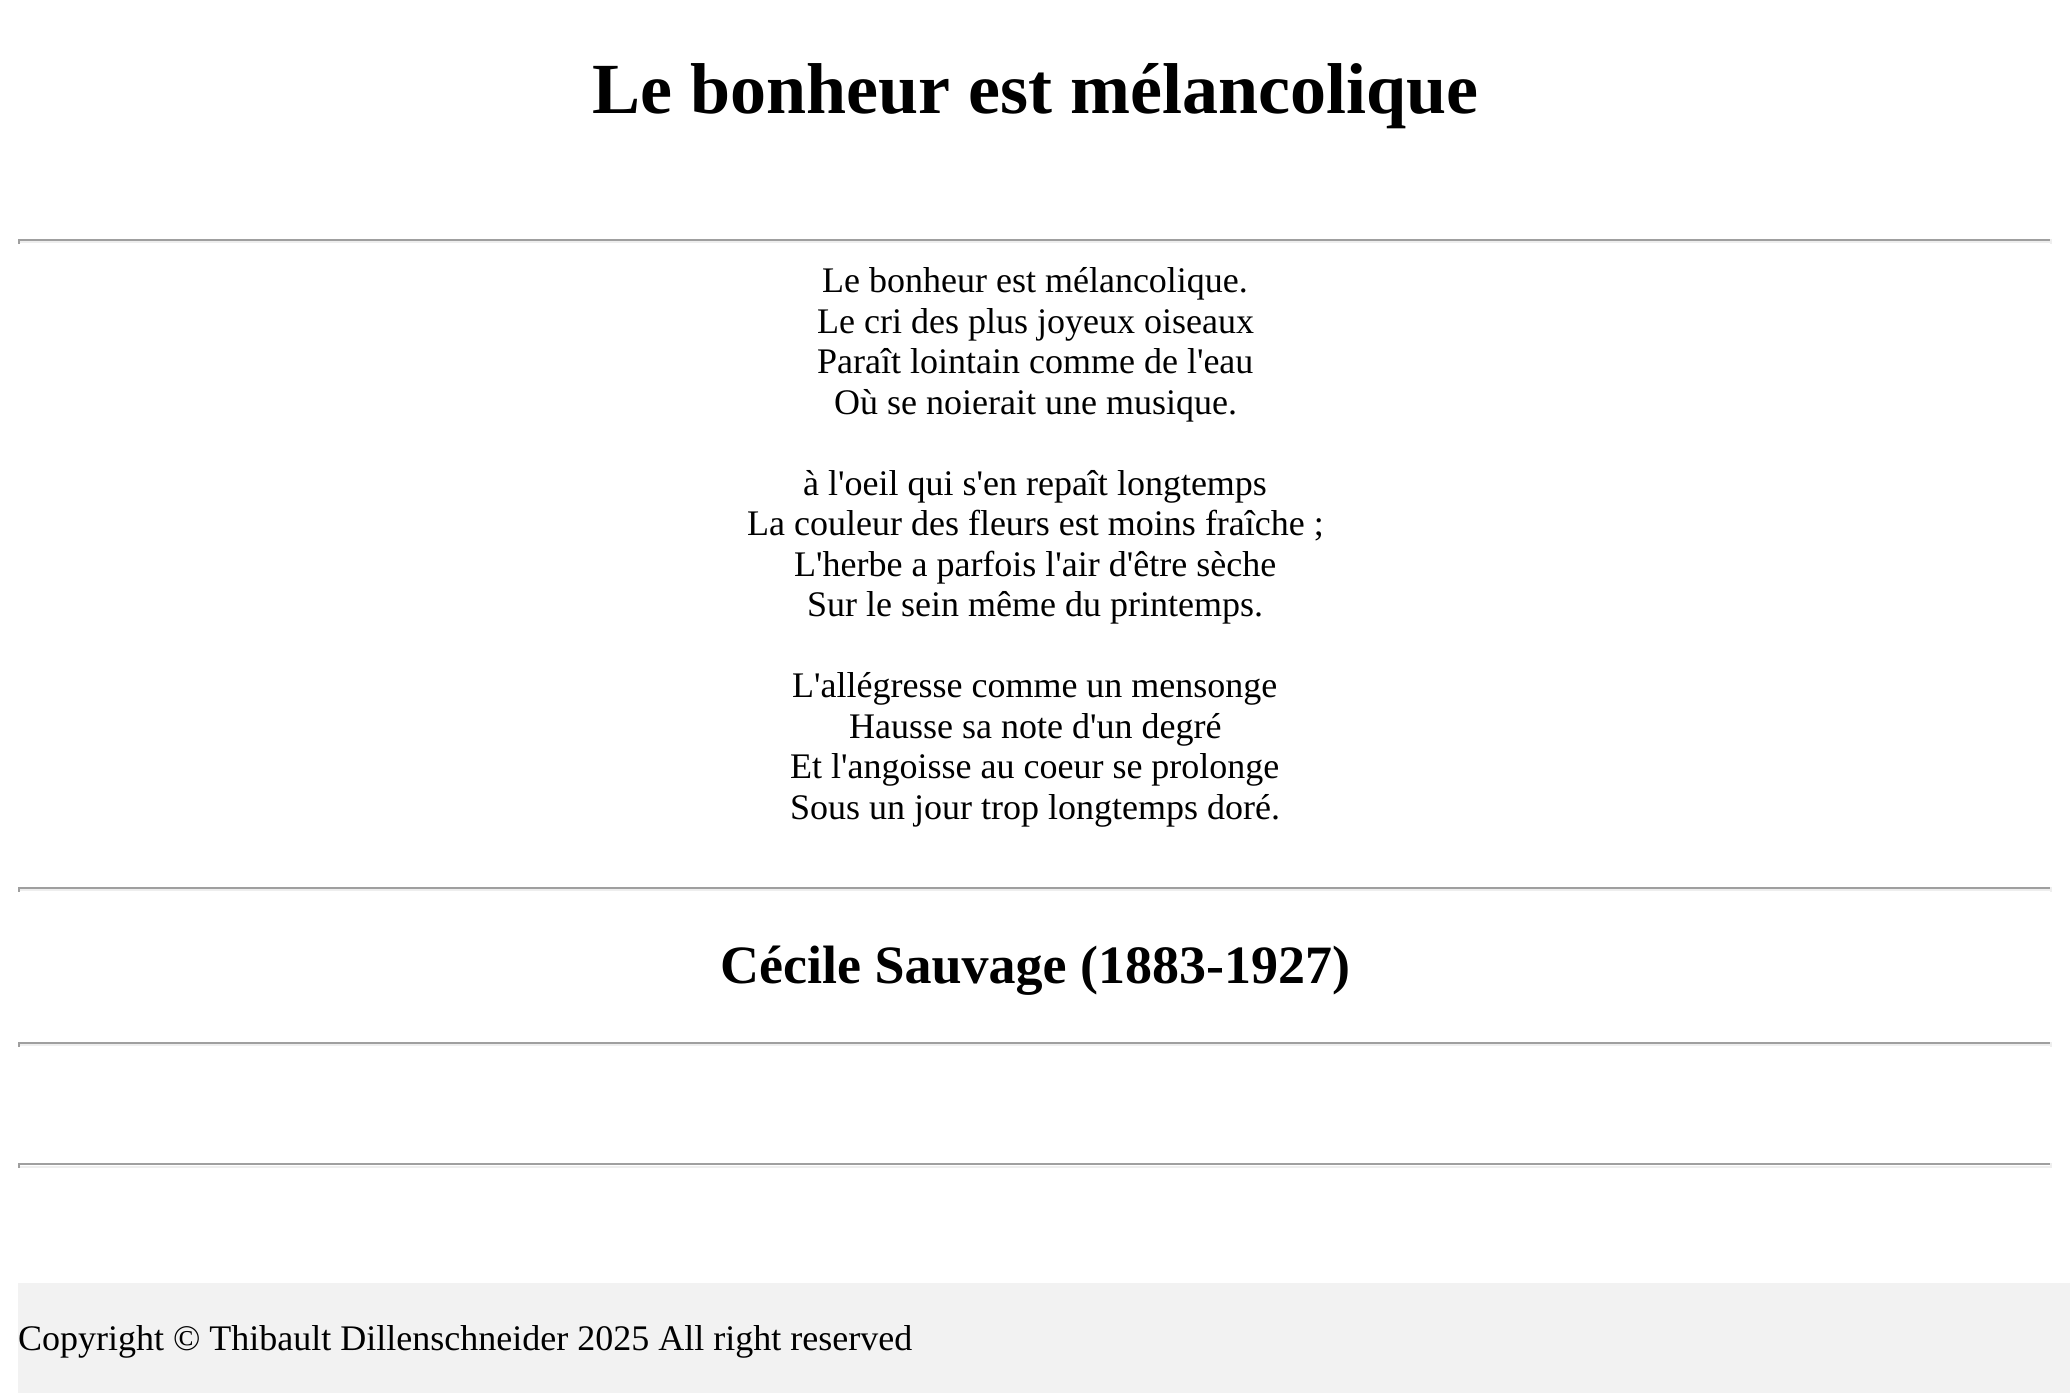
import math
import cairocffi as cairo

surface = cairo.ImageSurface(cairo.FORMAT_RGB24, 2070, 1393)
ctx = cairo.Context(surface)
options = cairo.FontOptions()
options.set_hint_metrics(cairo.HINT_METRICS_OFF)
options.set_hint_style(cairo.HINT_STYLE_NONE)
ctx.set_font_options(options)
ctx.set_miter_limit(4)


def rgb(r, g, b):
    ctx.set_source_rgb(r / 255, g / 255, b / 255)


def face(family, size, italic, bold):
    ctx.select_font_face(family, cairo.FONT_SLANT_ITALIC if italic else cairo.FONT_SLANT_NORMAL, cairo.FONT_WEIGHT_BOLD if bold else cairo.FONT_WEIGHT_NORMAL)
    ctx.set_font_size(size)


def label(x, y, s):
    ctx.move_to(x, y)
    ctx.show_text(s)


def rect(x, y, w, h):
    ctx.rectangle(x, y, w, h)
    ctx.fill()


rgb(255, 255, 255)
ctx.paint()
face('Liberation Serif', 72, 0, 1)
rgb(0, 0, 0)
label(592, 113, 'Le bonheur est mélancolique')
rgb(159, 159, 159)
rect(18, 239, 2034, 2)
rgb(238, 238, 238)
rect(2050, 239, 2, 5)
rect(18, 241, 2034, 2)
rgb(159, 159, 159)
rect(18, 239, 2, 5)
face('Liberation Serif', 36, 0, 0)
rgb(0, 0, 0)
label(822, 292, 'Le bonheur est mélancolique.')
label(817, 333, 'Le cri des plus joyeux oiseaux')
label(817, 373, 'Paraît lointain comme de l\'eau')
label(834, 414, 'Où se noierait une musique.')
label(803, 495, 'à l\'oeil qui s\'en repaît longtemps')
label(747, 535, 'La couleur des fleurs est moins fraîche ;')
label(794, 576, 'L\'herbe a parfois l\'air d\'être sèche')
label(807, 616, 'Sur le sein même du printemps.')
label(792, 697, 'L\'allégresse comme un mensonge')
label(849, 738, 'Hausse sa note d\'un degré')
label(790, 778, 'Et l\'angoisse au coeur se prolonge')
label(790, 819, 'Sous un jour trop longtemps doré.')
rgb(159, 159, 159)
rect(18, 887, 2034, 2)
rgb(238, 238, 238)
rect(2050, 887, 2, 5)
rect(18, 889, 2034, 2)
rgb(159, 159, 159)
rect(18, 887, 2, 5)
face('Liberation Serif', 54, 0, 1)
rgb(0, 0, 0)
label(720, 983, 'Cécile Sauvage (1883-1927)')
rgb(159, 159, 159)
rect(18, 1042, 2034, 2)
rgb(238, 238, 238)
rect(2050, 1042, 2, 5)
rect(18, 1044, 2034, 2)
rgb(159, 159, 159)
rect(18, 1042, 2, 5)
rect(18, 1163, 2034, 2)
rgb(238, 238, 238)
rect(2050, 1163, 2, 5)
rect(18, 1166, 2034, 2)
rgb(159, 159, 159)
rect(18, 1163, 2, 5)
rgb(242, 242, 242)
rect(18, 1283, 2052, 110)
face('Liberation Serif', 36, 0, 0)
rgb(0, 0, 0)
label(18, 1350, 'Copyright © Thibault Dillenschneider 2025 All right reserved')
surface.write_to_png('render.png')
